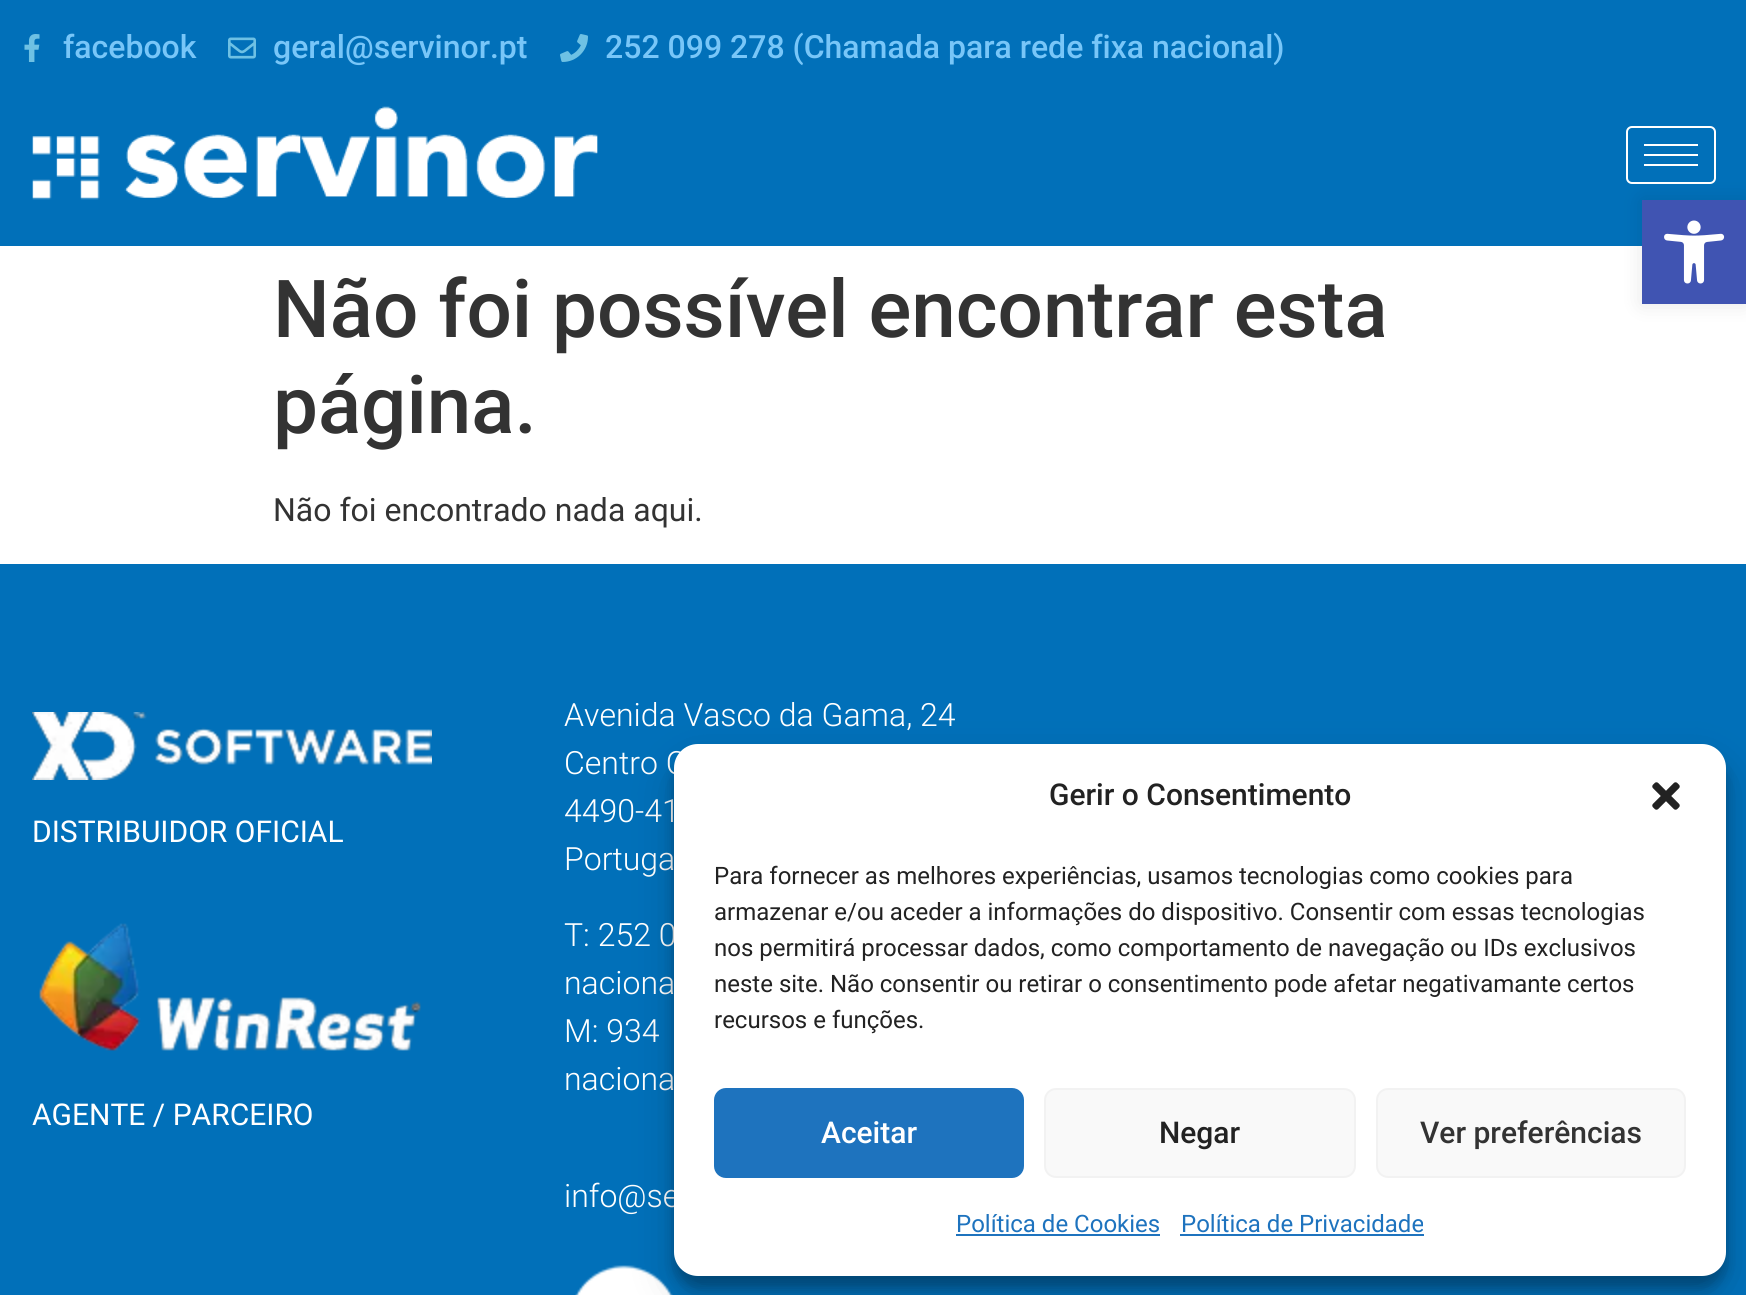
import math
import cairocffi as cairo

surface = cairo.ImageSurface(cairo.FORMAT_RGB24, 1746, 1295)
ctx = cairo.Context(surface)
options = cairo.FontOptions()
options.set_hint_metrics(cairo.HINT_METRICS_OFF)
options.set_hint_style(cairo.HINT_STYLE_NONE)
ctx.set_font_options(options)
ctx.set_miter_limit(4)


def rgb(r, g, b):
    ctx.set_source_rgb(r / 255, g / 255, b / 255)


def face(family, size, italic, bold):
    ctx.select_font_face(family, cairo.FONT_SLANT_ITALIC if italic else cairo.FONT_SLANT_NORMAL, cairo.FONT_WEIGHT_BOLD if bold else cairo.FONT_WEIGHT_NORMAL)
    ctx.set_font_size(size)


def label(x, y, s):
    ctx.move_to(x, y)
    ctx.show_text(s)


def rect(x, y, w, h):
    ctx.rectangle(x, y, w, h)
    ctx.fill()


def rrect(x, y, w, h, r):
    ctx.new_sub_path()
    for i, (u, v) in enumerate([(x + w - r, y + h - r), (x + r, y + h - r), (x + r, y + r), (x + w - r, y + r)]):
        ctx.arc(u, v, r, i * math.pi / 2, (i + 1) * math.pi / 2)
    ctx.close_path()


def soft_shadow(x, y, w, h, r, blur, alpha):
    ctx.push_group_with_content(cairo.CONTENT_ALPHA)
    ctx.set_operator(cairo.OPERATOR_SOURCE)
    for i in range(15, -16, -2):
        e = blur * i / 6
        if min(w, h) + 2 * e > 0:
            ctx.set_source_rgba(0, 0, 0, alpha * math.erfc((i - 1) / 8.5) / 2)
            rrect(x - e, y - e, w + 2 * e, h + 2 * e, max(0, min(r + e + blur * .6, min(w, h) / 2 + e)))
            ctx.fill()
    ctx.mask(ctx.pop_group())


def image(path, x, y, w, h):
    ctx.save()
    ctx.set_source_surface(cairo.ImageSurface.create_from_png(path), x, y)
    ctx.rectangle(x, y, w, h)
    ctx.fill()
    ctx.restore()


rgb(255, 255, 255)
ctx.paint()
rgb(1, 112, 185)
rect(0, 0, 1746, 246)
image('image0.png', 24, 34, 16, 28)
face('Roboto Medium', 32, 0, 0)
rgb(120, 198, 248)
label(63, 58, 'facebook')
image('image1.png', 228, 37, 28, 22)
label(273, 58, 'geral@servinor.pt')
image('image2.png', 560, 34, 28, 28)
label(605, 58, '252 099 278 (Chamada para rede fixa nacional)')
image('image3.png', 32, 106, 566, 94)
rrect(1627, 127, 88, 56, 5)
rgb(255, 255, 255)
ctx.stroke()
rect(1644, 144, 54, 2)
rect(1644, 154, 54, 2)
rect(1644, 164, 54, 2)
rgb(0, 0, 0)
soft_shadow(1642, 200, 104, 104, 0, 10, 0.1)
rgb(64, 84, 178)
rect(1642, 200, 104, 104)
image('image4.png', 1664, 220, 61, 64)
face('Roboto Medium', 80, 0, 0)
rgb(51, 51, 51)
label(273, 337, 'Não foi possível encontrar esta')
label(273, 433, 'página.')
face('Roboto', 32, 0, 0)
label(273, 521, 'Não foi encontrado nada aqui.')
rgb(1, 112, 185)
rect(0, 564, 1746, 731)
image('image5.png', 32, 712, 400, 68)
face('Roboto', 30, 0, 0)
rgb(255, 255, 255)
label(32, 842, 'DISTRIBUIDOR OFICIAL')
image('image6.png', 39, 923, 382, 128)
label(32, 1125, 'AGENTE / PARCEIRO')
face('Roboto Light', 32, 0, 0)
label(564, 726, 'Avenida Vasco da Gama, 24')
label(564, 774, 'Centro C')
label(564, 822, '4490-41')
label(564, 870, 'Portuga')
label(564, 946, 'T: 252 0')
label(564, 994, 'naciona')
label(564, 1042, 'M: 934')
label(564, 1090, 'naciona')
label(564, 1207, 'info@se')
image('image7.png', 575, 1265, 98, 30)
rgb(0, 0, 0)
soft_shadow(674, 756, 1052, 532, 24, 6, 0.23)
soft_shadow(674, 764, 1052, 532, 24, 20, 0.19)
rgb(255, 255, 255)
rrect(674, 744, 1052, 532, 24)
ctx.fill()
face('Roboto Medium', 30, 0, 0)
rgb(34, 34, 34)
label(1049, 805, 'Gerir o Consentimento')
image('image8.png', 1652, 782, 28, 28)
face('Roboto', 24, 0, 0)
label(714, 884, 'Para fornecer as melhores experiências, usamos tecnologias como cookies para')
label(714, 920, 'armazenar e/ou aceder a informações do dispositivo. Consentir com essas tecnologias')
label(714, 956, 'nos permitirá processar dados, como comportamento de navegação ou IDs exclusivos')
label(714, 992, 'neste site. Não consentir ou retirar o consentimento pode afetar negativamante certos')
label(714, 1028, 'recursos e funções.')
rgb(30, 115, 190)
rrect(715, 1089, 308, 88, 11)
ctx.fill_preserve()
ctx.stroke()
face('Roboto Medium', 30, 0, 0)
rgb(255, 255, 255)
label(821, 1143, 'Aceitar')
rgb(249, 249, 249)
rrect(1045, 1089, 310, 88, 11)
ctx.fill_preserve()
rgb(242, 242, 242)
ctx.stroke()
rgb(34, 34, 34)
label(1159, 1143, 'Negar')
rgb(249, 249, 249)
rrect(1377, 1089, 308, 88, 11)
ctx.fill_preserve()
rgb(242, 242, 242)
ctx.stroke()
rgb(51, 51, 51)
label(1420, 1143, 'Ver preferências')
face('Roboto', 24, 0, 0)
rgb(30, 115, 190)
label(956, 1232, 'Política de Cookies')
rect(956, 1234, 204, 2)
label(1181, 1232, 'Política de Privacidade')
rect(1180, 1234, 244, 2)
surface.write_to_png('render.png')
